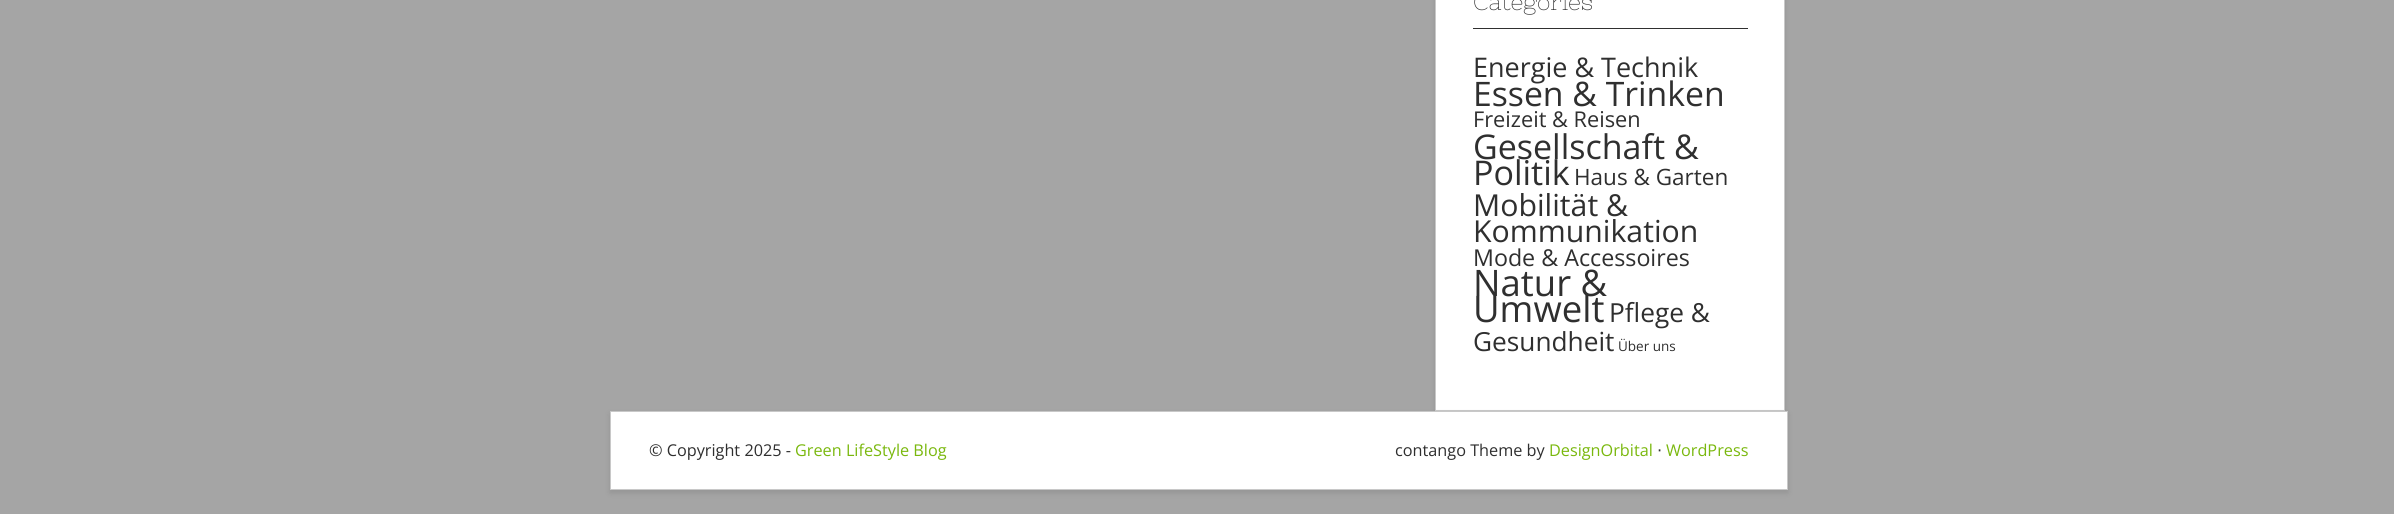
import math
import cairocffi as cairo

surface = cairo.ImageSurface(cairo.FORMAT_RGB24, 2394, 514)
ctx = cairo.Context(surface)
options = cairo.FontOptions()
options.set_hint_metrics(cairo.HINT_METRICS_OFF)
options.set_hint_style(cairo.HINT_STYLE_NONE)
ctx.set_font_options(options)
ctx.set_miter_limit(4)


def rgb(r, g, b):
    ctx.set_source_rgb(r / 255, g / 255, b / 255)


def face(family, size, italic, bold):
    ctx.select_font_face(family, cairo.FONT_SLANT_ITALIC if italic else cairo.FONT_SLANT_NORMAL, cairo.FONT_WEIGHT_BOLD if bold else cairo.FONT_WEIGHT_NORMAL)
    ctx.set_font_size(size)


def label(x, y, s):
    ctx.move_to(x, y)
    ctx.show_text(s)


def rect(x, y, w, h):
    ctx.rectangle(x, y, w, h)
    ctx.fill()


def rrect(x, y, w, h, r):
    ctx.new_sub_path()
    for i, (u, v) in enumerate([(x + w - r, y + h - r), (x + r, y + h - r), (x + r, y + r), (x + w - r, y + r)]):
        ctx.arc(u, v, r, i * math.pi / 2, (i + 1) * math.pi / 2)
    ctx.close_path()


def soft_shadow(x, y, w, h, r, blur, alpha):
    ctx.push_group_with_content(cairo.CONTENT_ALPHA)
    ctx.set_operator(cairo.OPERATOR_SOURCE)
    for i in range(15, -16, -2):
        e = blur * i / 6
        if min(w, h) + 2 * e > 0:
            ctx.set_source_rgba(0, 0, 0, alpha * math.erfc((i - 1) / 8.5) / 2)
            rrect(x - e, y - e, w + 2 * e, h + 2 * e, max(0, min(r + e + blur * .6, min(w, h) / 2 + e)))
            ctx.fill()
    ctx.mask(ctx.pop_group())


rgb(165, 165, 165)
ctx.paint()
rgb(50, 50, 50)
soft_shadow(1435, -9, 350, 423, 0, 3, 0.15)
rgb(255, 255, 255)
ctx.rectangle(1435.5, -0.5, 349, 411)
ctx.fill_preserve()
rgb(200, 200, 200)
ctx.set_line_width(1)
ctx.stroke()
rgb(47, 47, 47)
rect(1473, 28, 275, 1)
face('Nixie One', 22.5, 0, 0)
label(1473, 10, 'Categories')
face('Open Sans', 27, 0, 0)
label(1473, 77, 'Energie & Technik')
face('Open Sans', 33.75, 0, 0)
label(1473, 106, 'Essen & Trinken')
face('Open Sans', 21.75, 0, 0)
label(1473, 127, 'Freizeit & Reisen')
face('Open Sans', 34, 0, 0)
label(1473, 159, 'Gesellschaft &')
label(1473, 185, 'Politik')
face('Open Sans', 22.5, 0, 0)
label(1574, 185, 'Haus & Garten')
face('Open Sans', 30.25, 0, 0)
label(1473, 216, 'Mobilität &')
label(1473, 242, 'Kommunikation')
face('Open Sans', 23.25, 0, 0)
label(1473, 266, 'Mode & Accessoires')
face('Open Sans', 36.5, 0, 0)
label(1473, 296, 'Natur &')
label(1473, 322, 'Umwelt')
face('Open Sans', 26.25, 0, 0)
label(1609, 322, 'Pflege &')
label(1473, 351, 'Gesundheit')
face('Open Sans', 13.5, 0, 0)
label(1618, 351, 'Über uns')
rgb(50, 50, 50)
soft_shadow(610, 414, 1178, 79, 0, 3, 0.15)
rgb(255, 255, 255)
ctx.rectangle(610.5, 411.5, 1177, 78)
ctx.fill_preserve()
rgb(200, 200, 200)
ctx.stroke()
face('Open Sans', 16.25, 0, 0)
rgb(47, 47, 47)
label(649, 456, '© Copyright 2025 -')
rgb(122, 184, 14)
label(795, 456, 'Green LifeStyle Blog')
rgb(47, 47, 47)
label(1395, 456, 'contango Theme by')
rgb(122, 184, 14)
label(1549, 456, 'DesignOrbital')
face('DejaVu Sans', 16.25, 0, 0)
rgb(47, 47, 47)
label(1657, 456, '⋅')
face('Open Sans', 16.25, 0, 0)
rgb(122, 184, 14)
label(1666, 456, 'WordPress')
surface.write_to_png('render.png')
